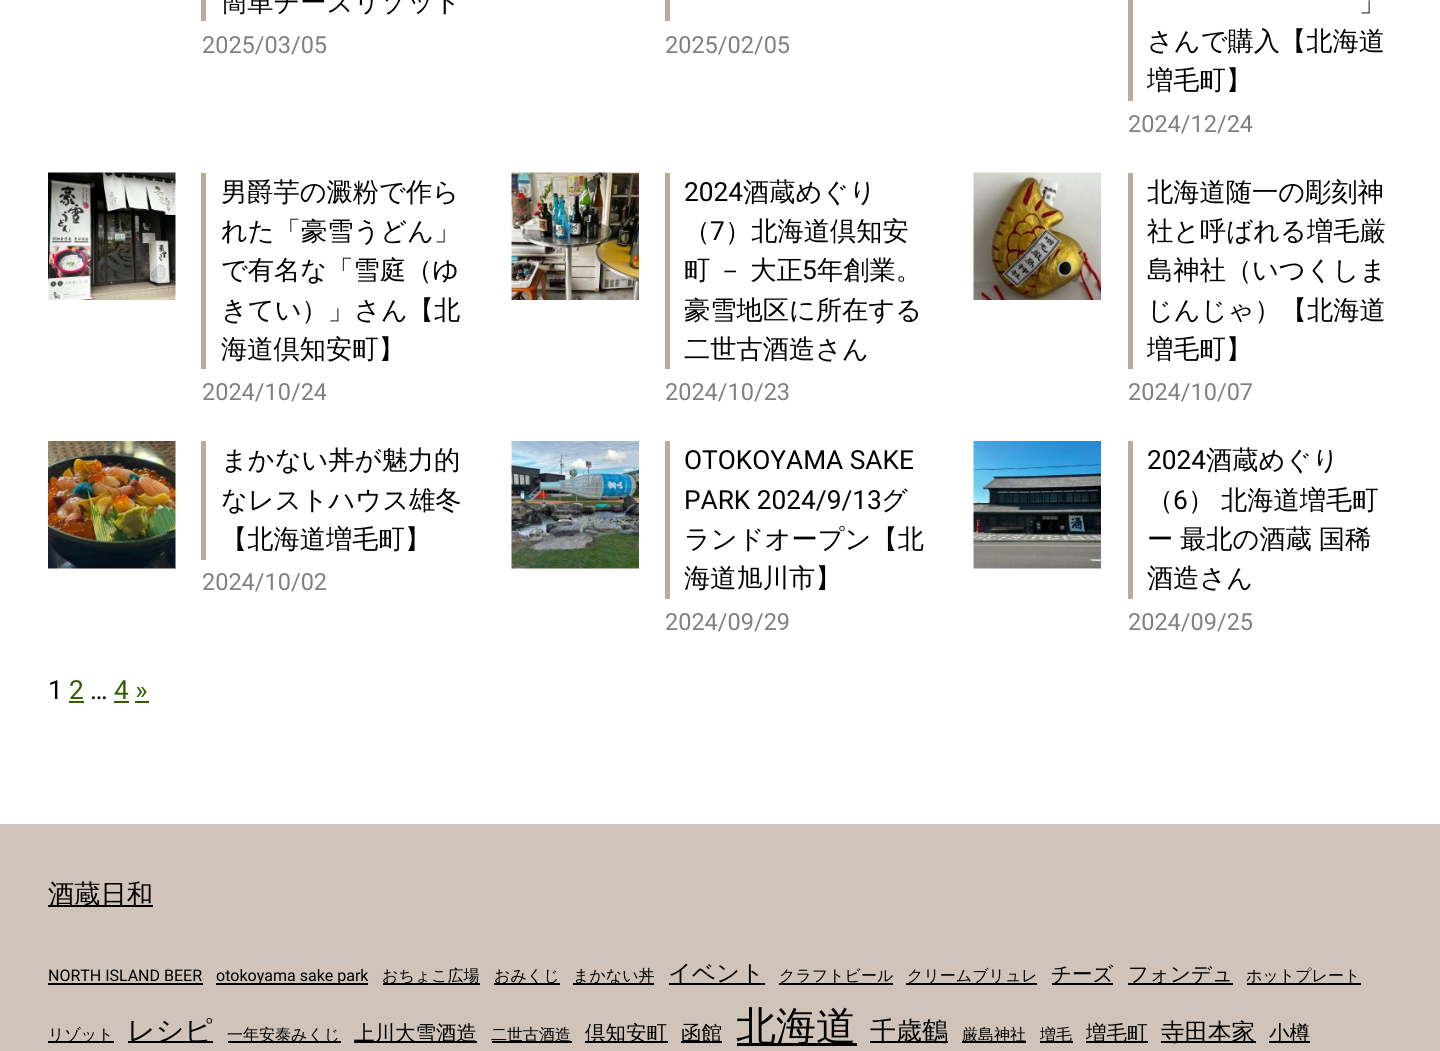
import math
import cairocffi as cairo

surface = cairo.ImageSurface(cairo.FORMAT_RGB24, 1440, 1051)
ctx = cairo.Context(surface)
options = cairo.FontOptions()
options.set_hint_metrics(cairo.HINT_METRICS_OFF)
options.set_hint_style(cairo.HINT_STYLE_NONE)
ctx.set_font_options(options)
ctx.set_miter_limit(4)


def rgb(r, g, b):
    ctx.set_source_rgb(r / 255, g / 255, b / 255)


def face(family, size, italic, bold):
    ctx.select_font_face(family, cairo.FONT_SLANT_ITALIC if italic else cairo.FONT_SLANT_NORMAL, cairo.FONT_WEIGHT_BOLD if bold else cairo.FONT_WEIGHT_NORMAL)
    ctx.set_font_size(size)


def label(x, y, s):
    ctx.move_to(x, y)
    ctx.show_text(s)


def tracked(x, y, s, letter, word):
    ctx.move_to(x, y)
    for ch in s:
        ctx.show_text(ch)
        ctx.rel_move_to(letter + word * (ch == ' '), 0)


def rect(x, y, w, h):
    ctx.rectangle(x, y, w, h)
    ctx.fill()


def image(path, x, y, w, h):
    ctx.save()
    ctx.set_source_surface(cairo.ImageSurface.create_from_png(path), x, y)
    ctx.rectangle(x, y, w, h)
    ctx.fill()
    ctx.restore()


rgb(255, 255, 255)
ctx.paint()
rgb(186, 169, 156)
rect(201, 0, 5, 21)
face('WenQuanYi Zen Hei Medium', 26.25, 0, 0)
rgb(0, 0, 0)
label(221, 11, '簡単チーズリゾット')
face('Roboto', 23.5, 0, 0)
rgb(128, 128, 128)
label(202, 53, '2025/03/05')
rgb(186, 169, 156)
rect(665, 0, 5, 21)
rgb(128, 128, 128)
label(665, 53, '2025/02/05')
rgb(186, 169, 156)
rect(1128, 0, 5, 101)
face('WenQuanYi Zen Hei Medium', 26.25, 0, 0)
rgb(0, 0, 0)
label(1359, 11, '」')
label(1147, 50, 'さんで購入【北海道')
label(1147, 89, '増毛町】')
face('Roboto', 23.5, 0, 0)
rgb(128, 128, 128)
label(1128, 132, '2024/12/24')
image('image0.png', 48, 172, 128, 128)
rgb(186, 169, 156)
rect(201, 173, 5, 196)
face('WenQuanYi Zen Hei Medium', 26.25, 0, 0)
rgb(0, 0, 0)
label(221, 201, '男爵芋の澱粉で作ら')
label(221, 240, 'れた「豪雪うどん」')
label(221, 279, 'で有名な「雪庭（ゆ')
label(221, 319, 'きてい）」さん【北')
label(221, 358, '海道倶知安町】')
face('Roboto', 23.5, 0, 0)
rgb(128, 128, 128)
label(202, 400, '2024/10/24')
image('image1.png', 511, 172, 128, 128)
rgb(186, 169, 156)
rect(665, 173, 5, 196)
face('Roboto', 26.25, 0, 0)
rgb(0, 0, 0)
label(684, 201, '2024')
face('WenQuanYi Zen Hei Medium', 26.25, 0, 0)
label(743, 201, '酒蔵めぐり')
label(684, 240, '（')
face('Roboto', 26.25, 0, 0)
label(710, 240, '7')
face('WenQuanYi Zen Hei Medium', 26.25, 0, 0)
label(725, 240, '）北海道倶知安')
tracked(684, 279, '町 － 大正', 0, -1)
face('Roboto', 26.25, 0, 0)
label(802, 279, '5')
face('WenQuanYi Zen Hei Medium', 26.25, 0, 0)
label(817, 279, '年創業。')
label(684, 319, '豪雪地区に所在する')
label(684, 358, '二世古酒造さん')
face('Roboto', 23.5, 0, 0)
rgb(128, 128, 128)
label(665, 400, '2024/10/23')
image('image2.png', 973, 172, 128, 128)
rgb(186, 169, 156)
rect(1128, 173, 5, 196)
face('WenQuanYi Zen Hei Medium', 26.25, 0, 0)
rgb(0, 0, 0)
label(1147, 201, '北海道随一の彫刻神')
label(1147, 240, '社と呼ばれる増毛厳')
label(1147, 279, '島神社（いつくしま')
label(1147, 319, 'じんじゃ）【北海道')
label(1147, 358, '増毛町】')
face('Roboto', 23.5, 0, 0)
rgb(128, 128, 128)
label(1128, 400, '2024/10/07')
image('image3.png', 48, 441, 128, 128)
rgb(186, 169, 156)
rect(201, 441, 5, 119)
face('WenQuanYi Zen Hei Medium', 26.25, 0, 0)
rgb(0, 0, 0)
label(221, 469, 'まかない丼が魅力的')
label(221, 509, 'なレストハウス雄冬')
label(221, 548, '【北海道増毛町】')
face('Roboto', 23.5, 0, 0)
rgb(128, 128, 128)
label(202, 590, '2024/10/02')
image('image4.png', 511, 441, 128, 128)
rgb(186, 169, 156)
rect(665, 441, 5, 158)
face('Roboto', 26.25, 0, 0)
rgb(0, 0, 0)
label(684, 469, 'OTOKOYAMA SAKE')
label(684, 509, 'PARK 2024/9/13')
face('WenQuanYi Zen Hei Medium', 26.25, 0, 0)
label(881, 509, 'グ')
label(684, 548, 'ランドオープン【北')
label(684, 587, '海道旭川市】')
face('Roboto', 23.5, 0, 0)
rgb(128, 128, 128)
label(665, 630, '2024/09/29')
image('image5.png', 973, 441, 128, 128)
rgb(186, 169, 156)
rect(1128, 441, 5, 158)
face('Roboto', 26.25, 0, 0)
rgb(0, 0, 0)
label(1147, 469, '2024')
face('WenQuanYi Zen Hei Medium', 26.25, 0, 0)
label(1206, 469, '酒蔵めぐり')
label(1147, 509, '（')
face('Roboto', 26.25, 0, 0)
label(1173, 509, '6')
face('WenQuanYi Zen Hei Medium', 26.25, 0, 0)
tracked(1188, 509, '） 北海道増毛町', 0, -1)
tracked(1147, 548, 'ー 最北の酒蔵 国稀', 0, -1)
label(1147, 587, '酒造さん')
face('Roboto', 23.5, 0, 0)
rgb(128, 128, 128)
label(1128, 630, '2024/09/25')
face('Roboto', 26.25, 0, 0)
rgb(0, 0, 0)
label(48, 699, '1')
rgb(52, 92, 0)
label(69, 699, '2')
rect(69, 701, 15, 2)
rgb(0, 0, 0)
label(90, 699, '…')
rgb(52, 92, 0)
label(114, 699, '4 »')
rect(114, 701, 15, 2)
rect(135, 701, 14, 2)
rgb(207, 195, 186)
rect(0, 824, 1440, 227)
rgb(0, 0, 0)
rect(48, 905, 105, 2)
face('WenQuanYi Zen Hei Medium', 26.25, 0, 0)
label(48, 903, '酒蔵日和')
face('Roboto', 16, 0, 0)
label(48, 981, 'NORTH ISLAND BEER')
rect(48, 983, 155, 2)
rect(216, 983, 152, 2)
label(216, 981, 'otokoyama sake park')
rect(383, 983, 97, 2)
face('WenQuanYi Zen Hei Medium', 16, 0, 0)
label(382, 981, 'おちょこ広場')
rect(494, 983, 66, 2)
label(494, 981, 'おみくじ')
rect(573, 983, 81, 2)
label(573, 981, 'まかない丼')
rect(669, 983, 96, 2)
face('WenQuanYi Zen Hei Medium', 23.5, 0, 0)
label(668, 981, 'イベント')
rect(779, 983, 114, 2)
face('WenQuanYi Zen Hei Medium', 16, 0, 0)
label(779, 981, 'クラフトビール')
rect(906, 983, 131, 2)
label(907, 981, 'クリームブリュレ')
rect(1052, 983, 61, 2)
face('WenQuanYi Zen Hei Medium', 20.5, 0, 0)
label(1051, 981, 'チーズ')
rect(1128, 983, 105, 2)
label(1128, 981, 'フォンデュ')
face('WenQuanYi Zen Hei Medium', 16, 0, 0)
label(1246, 981, 'ホットプレート')
rect(1247, 983, 114, 2)
rect(48, 1041, 66, 2)
label(48, 1040, 'リゾット')
rect(128, 1041, 85, 2)
face('WenQuanYi Zen Hei Medium', 28, 0, 0)
label(127, 1040, 'レシピ')
rect(228, 1041, 113, 2)
face('WenQuanYi Zen Hei Medium', 16, 0, 0)
label(227, 1040, '一年安泰みくじ')
rect(354, 1041, 123, 2)
face('WenQuanYi Zen Hei Medium', 20.5, 0, 0)
label(354, 1040, '上川大雪酒造')
rect(492, 1041, 80, 2)
face('WenQuanYi Zen Hei Medium', 16, 0, 0)
label(491, 1040, '二世古酒造')
rect(585, 1041, 83, 2)
face('WenQuanYi Zen Hei Medium', 20.5, 0, 0)
label(585, 1040, '倶知安町')
rect(681, 1041, 41, 2)
label(681, 1040, '函館')
rect(737, 1043, 120, 3)
face('WenQuanYi Zen Hei Medium', 40, 0, 0)
label(736, 1040, '北海道')
rect(870, 1041, 78, 2)
face('WenQuanYi Zen Hei Medium', 26, 0, 0)
label(870, 1040, '千歳鶴')
rect(962, 1041, 64, 2)
face('WenQuanYi Zen Hei Medium', 16, 0, 0)
label(962, 1040, '厳島神社')
rect(1040, 1041, 33, 2)
label(1040, 1040, '増毛')
rect(1086, 1041, 62, 2)
face('WenQuanYi Zen Hei Medium', 20.5, 0, 0)
label(1086, 1040, '増毛町')
rect(1161, 1041, 95, 2)
face('WenQuanYi Zen Hei Medium', 23.5, 0, 0)
label(1161, 1040, '寺田本家')
rect(1269, 1041, 41, 2)
face('WenQuanYi Zen Hei Medium', 20.5, 0, 0)
label(1269, 1040, '小樽')
surface.write_to_png('render.png')
